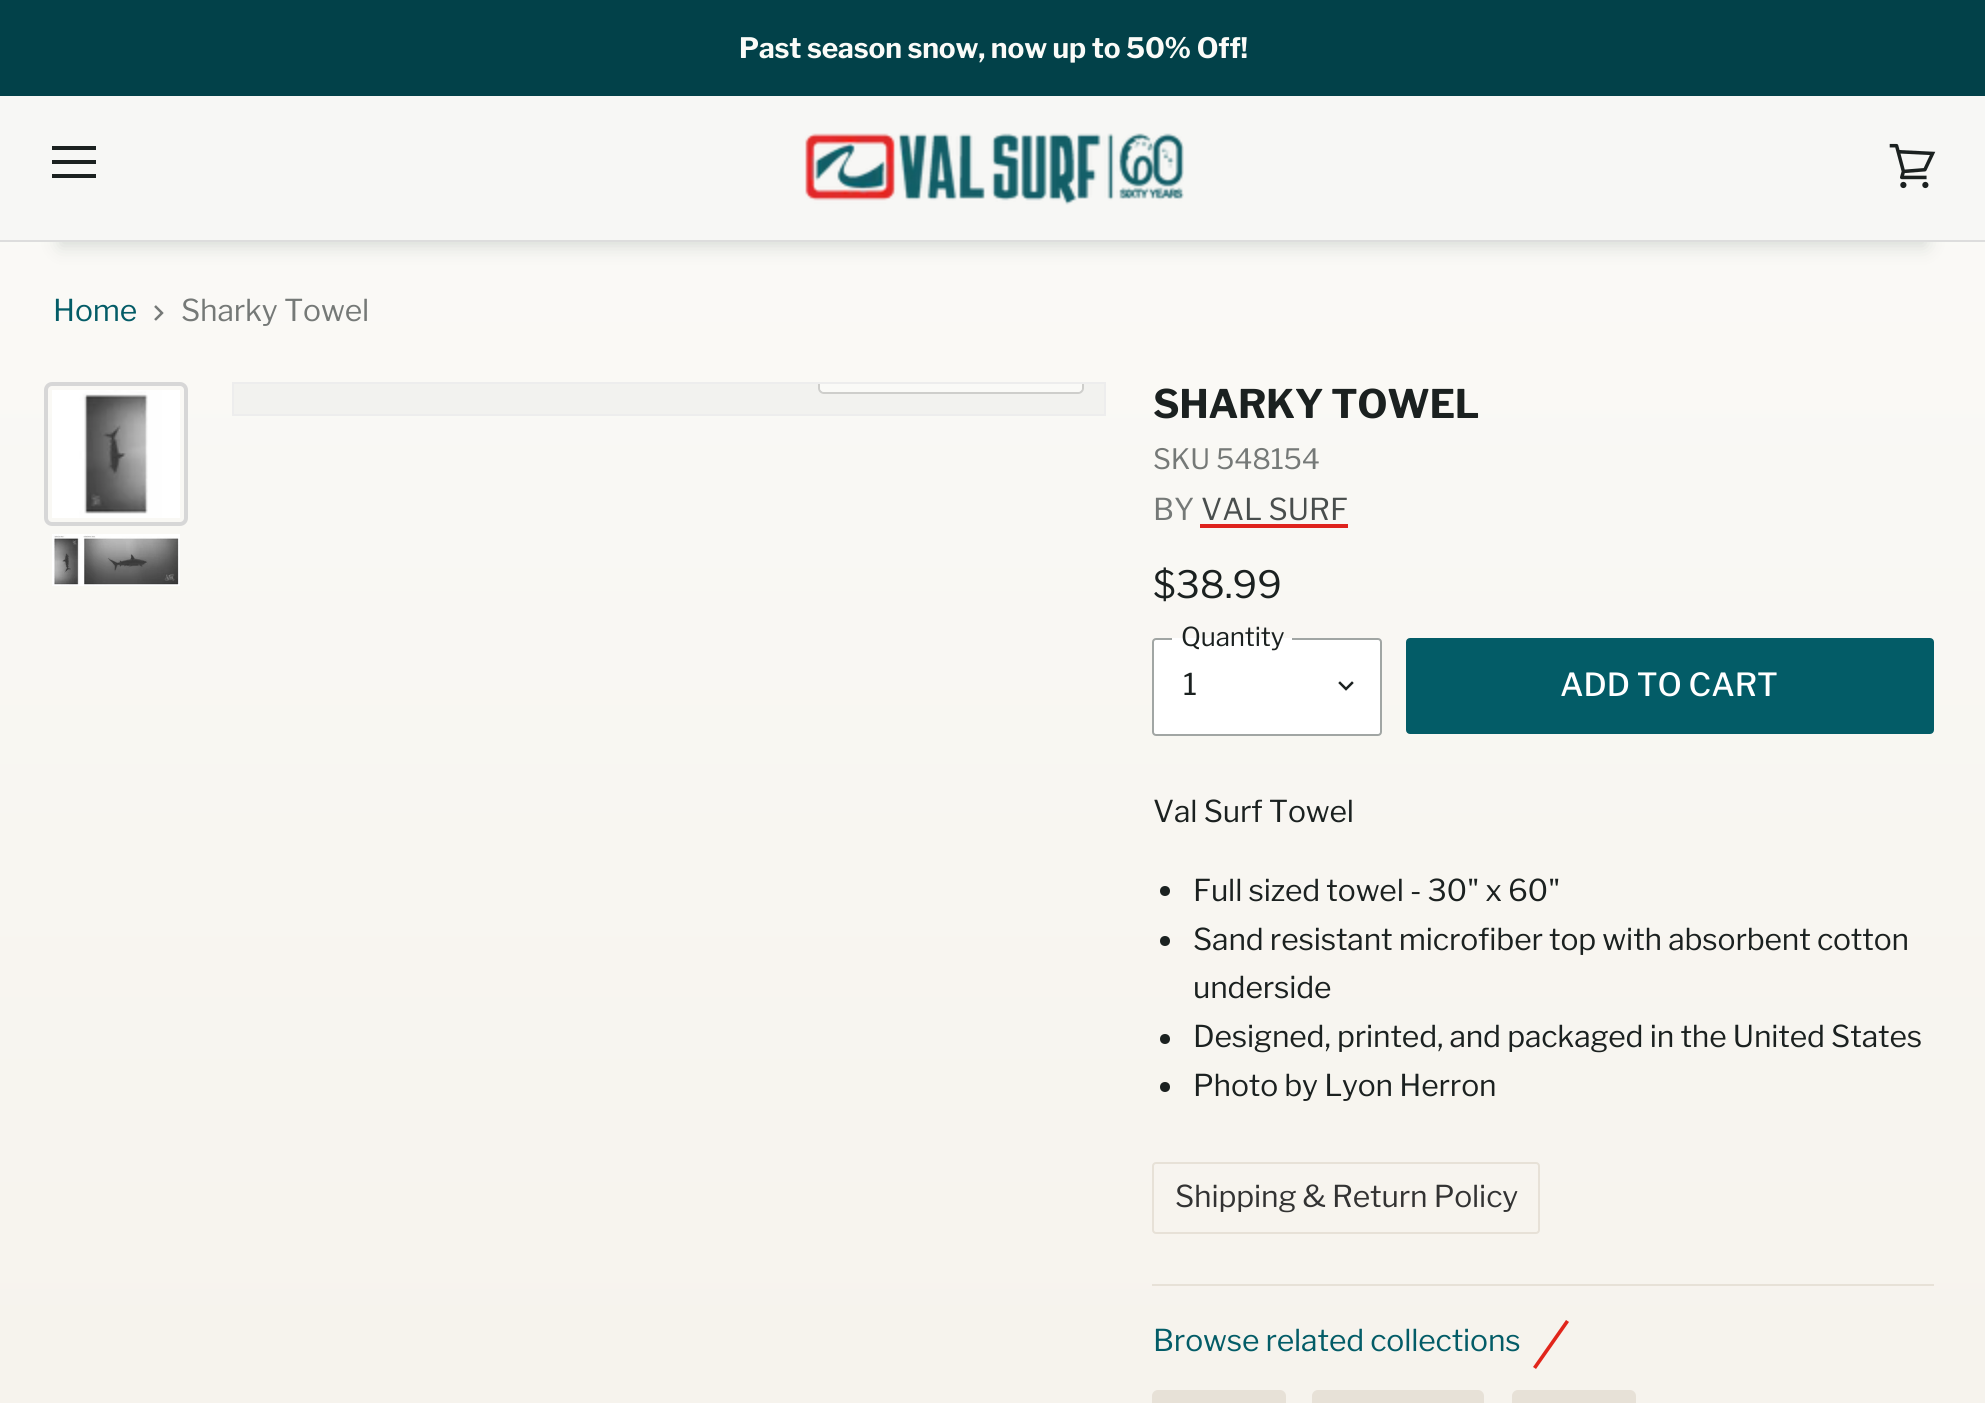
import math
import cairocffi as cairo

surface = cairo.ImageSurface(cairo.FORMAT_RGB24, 1985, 1403)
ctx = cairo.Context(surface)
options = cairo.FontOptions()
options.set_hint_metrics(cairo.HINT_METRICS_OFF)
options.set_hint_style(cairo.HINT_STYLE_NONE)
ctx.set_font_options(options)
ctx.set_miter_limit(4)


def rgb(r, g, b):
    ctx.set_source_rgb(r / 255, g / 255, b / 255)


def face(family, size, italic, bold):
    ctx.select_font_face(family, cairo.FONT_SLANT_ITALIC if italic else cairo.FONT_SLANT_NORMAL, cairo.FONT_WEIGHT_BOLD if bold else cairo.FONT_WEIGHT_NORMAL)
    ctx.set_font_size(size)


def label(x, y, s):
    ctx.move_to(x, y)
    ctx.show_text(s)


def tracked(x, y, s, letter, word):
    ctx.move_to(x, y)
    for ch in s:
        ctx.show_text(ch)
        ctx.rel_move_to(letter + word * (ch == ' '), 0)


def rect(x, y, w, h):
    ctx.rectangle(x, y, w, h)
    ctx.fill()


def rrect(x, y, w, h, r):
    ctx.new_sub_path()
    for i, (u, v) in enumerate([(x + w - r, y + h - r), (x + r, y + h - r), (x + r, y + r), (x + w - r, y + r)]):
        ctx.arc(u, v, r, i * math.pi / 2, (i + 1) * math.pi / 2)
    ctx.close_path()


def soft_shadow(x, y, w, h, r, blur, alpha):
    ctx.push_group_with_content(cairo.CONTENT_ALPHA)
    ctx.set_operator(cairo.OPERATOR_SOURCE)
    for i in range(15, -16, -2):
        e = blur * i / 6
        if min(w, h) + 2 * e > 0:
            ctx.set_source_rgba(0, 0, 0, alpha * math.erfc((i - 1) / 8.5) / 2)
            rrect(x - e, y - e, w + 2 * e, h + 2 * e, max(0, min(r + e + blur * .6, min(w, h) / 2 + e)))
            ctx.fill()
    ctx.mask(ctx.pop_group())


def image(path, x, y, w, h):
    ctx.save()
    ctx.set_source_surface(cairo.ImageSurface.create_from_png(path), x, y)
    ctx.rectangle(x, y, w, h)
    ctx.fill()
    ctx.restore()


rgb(255, 255, 255)
ctx.paint()
gradient = cairo.LinearGradient(993, 0, 993, 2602)
gradient.add_color_stop_rgba(0, 0.984, 0.984, 0.973, 1)
gradient.add_color_stop_rgba(1, 0.949, 0.925, 0.89, 1)
ctx.set_source(gradient)
rect(0, 242, 1985, 1161)
rgb(2, 65, 73)
rect(0, 0, 1985, 96)
face('Libre Franklin', 28.1, 0, 1)
rgb(251, 251, 248)
tracked(739, 58, 'Past season snow, now up to 50% Off!', -0.15, 0)
rgb(147, 159, 152)
soft_shadow(60, 220, 1866, 26, 0, 9, 0.35)
rgb(247, 247, 245)
rect(0, 96, 1985, 144)
rgb(221, 221, 221)
rect(0, 240, 1985, 2)
rgb(27, 33, 32)
rect(52, 146, 44, 4)
rect(52, 160, 44, 4)
rect(52, 174, 44, 4)
image('image0.png', 805, 133, 379, 72)
image('image1.png', 1889, 143, 47, 46)
face('Libre Franklin', 30, 0, 0)
rgb(3, 92, 103)
tracked(53, 321, 'Home', -0.15, 0)
ctx.save()
ctx.new_path()
ctx.move_to(153.5, 320.5)
ctx.line_to(153.5, 304.5)
ctx.line_to(163.5, 304.5)
ctx.line_to(163.5, 320.5)
ctx.close_path()
ctx.clip()
ctx.new_path()
ctx.move_to(155, 320)
ctx.line_to(162, 313)
ctx.line_to(155, 306)
rgb(117, 121, 119)
ctx.set_line_width(2.5)
ctx.stroke()
ctx.restore()
rgb(117, 121, 119)
tracked(181, 321, 'Sharky Towel', -0.15, 0)
rrect(46, 384, 140, 140, 6)
rgb(215, 215, 215)
ctx.set_line_width(4)
ctx.stroke()
image('image2.png', 52, 390, 128, 128)
image('image3.png', 52, 534, 128, 52)
ctx.rectangle(233, 383, 872, 32)
rgb(237, 237, 237)
ctx.set_line_width(2)
ctx.stroke()
rgb(242, 242, 239)
rect(234, 384, 870, 30)
ctx.save()
ctx.rectangle(234, 384, 870, 30)
ctx.clip()
rrect(819, 337, 264, 56, 5)
rgb(206, 206, 203)
ctx.stroke()
ctx.restore()
ctx.set_source_rgba(0.984, 0.984, 0.973, 0.9)
ctx.new_path()
ctx.move_to(820, 384)
ctx.line_to(1082, 384)
ctx.line_to(1082, 388)
ctx.curve_to(1082, 390, 1080, 392, 1078, 392)
ctx.line_to(824, 392)
ctx.curve_to(822, 392, 820, 390, 820, 388)
ctx.close_path()
ctx.fill()
face('Libre Franklin', 39.25, 0, 1)
rgb(27, 33, 32)
tracked(1153, 418, 'SHARKY TOWEL', -0.4, 0)
face('Libre Franklin', 28, 0, 0)
rgb(117, 121, 119)
tracked(1153, 469, 'SKU', -0.15, 0)
tracked(1216, 469, '548154', -0.15, 0)
face('Libre Franklin', 30, 0, 0)
label(1153, 520, 'BY')
rgb(73, 78, 77)
label(1201, 520, 'VAL SURF')
rgb(223, 35, 29)
rect(1200, 524, 148, 4)
face('Libre Franklin', 37.5, 0, 0)
rgb(27, 33, 32)
label(1153, 598, '$38.99')
rgb(255, 255, 255)
rrect(1153, 639, 228, 96, 3)
ctx.fill_preserve()
rgb(161, 166, 164)
ctx.stroke()
rgb(255, 255, 255)
rect(1172, 638, 120, 2)
face('Libre Franklin', 26, 0, 0)
rgb(27, 33, 32)
tracked(1181, 646, 'Quantity', -0.15, 0)
face('Libre Franklin', 30, 0, 0)
tracked(1183, 695, '1', -0.15, 0)
ctx.new_path()
ctx.move_to(1346, 689)
ctx.line_to(1352, 683)
ctx.move_to(1346, 689)
ctx.line_to(1340, 683)
ctx.set_line_width(2.5)
ctx.set_line_cap(cairo.LINE_CAP_SQUARE)
ctx.stroke()
rgb(3, 92, 103)
rrect(1407, 639, 526, 94, 3)
ctx.fill_preserve()
ctx.set_line_width(2)
ctx.set_line_cap(cairo.LINE_CAP_BUTT)
ctx.stroke()
face('Libre Franklin Medium', 31.75, 0, 0)
rgb(255, 255, 255)
label(1560, 696, 'ADD TO CART')
face('Libre Franklin', 30, 0, 0)
rgb(27, 33, 32)
tracked(1153, 822, 'Val Surf Towel', -0.15, 0)
ctx.new_path()
ctx.arc(1165, 891, 5, 0, 2 * math.pi)
ctx.fill()
tracked(1193, 901, 'Full sized towel - 30" x 60"', -0.15, 0)
ctx.new_path()
ctx.arc(1165, 941, 5, 0, 2 * math.pi)
ctx.fill()
tracked(1193, 950, 'Sand resistant microfiber top with absorbent cotton', -0.15, 0)
tracked(1193, 998, 'underside', -0.15, 0)
ctx.new_path()
ctx.arc(1165, 1039, 5, 0, 2 * math.pi)
ctx.fill()
tracked(1193, 1047, 'Designed, printed, and packaged in the United States', -0.15, 0)
ctx.new_path()
ctx.arc(1165, 1087, 5, 0, 2 * math.pi)
ctx.fill()
tracked(1193, 1096, 'Photo by Lyon Herron', -0.15, 0)
rrect(1153, 1163, 386, 70, 3)
rgb(231, 225, 215)
ctx.stroke()
rgb(51, 51, 51)
tracked(1175, 1207, 'Shipping & Return Policy', -0.15, 0)
rgb(231, 225, 215)
rect(1152, 1284, 782, 2)
rgb(3, 92, 103)
tracked(1153, 1351, 'Browse related collections', -0.15, 0)
rgb(225, 37, 27)
ctx.new_path()
ctx.move_to(1566, 1320)
ctx.line_to(1569, 1322)
ctx.line_to(1536, 1369)
ctx.line_to(1533, 1367)
ctx.close_path()
ctx.fill()
rgb(231, 225, 215)
rrect(1153, 1391, 132, 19, 5)
ctx.fill_preserve()
ctx.stroke()
rrect(1313, 1391, 170, 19, 5)
ctx.fill_preserve()
ctx.stroke()
rrect(1513, 1391, 122, 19, 5)
ctx.fill_preserve()
ctx.stroke()
surface.write_to_png('render.png')
